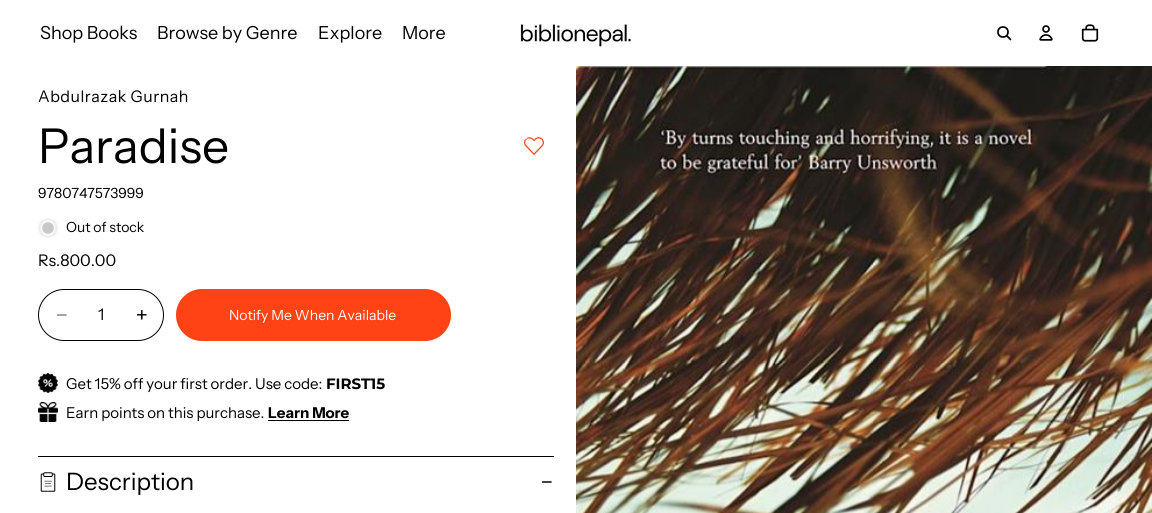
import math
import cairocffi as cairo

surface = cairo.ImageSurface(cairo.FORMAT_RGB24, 1152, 513)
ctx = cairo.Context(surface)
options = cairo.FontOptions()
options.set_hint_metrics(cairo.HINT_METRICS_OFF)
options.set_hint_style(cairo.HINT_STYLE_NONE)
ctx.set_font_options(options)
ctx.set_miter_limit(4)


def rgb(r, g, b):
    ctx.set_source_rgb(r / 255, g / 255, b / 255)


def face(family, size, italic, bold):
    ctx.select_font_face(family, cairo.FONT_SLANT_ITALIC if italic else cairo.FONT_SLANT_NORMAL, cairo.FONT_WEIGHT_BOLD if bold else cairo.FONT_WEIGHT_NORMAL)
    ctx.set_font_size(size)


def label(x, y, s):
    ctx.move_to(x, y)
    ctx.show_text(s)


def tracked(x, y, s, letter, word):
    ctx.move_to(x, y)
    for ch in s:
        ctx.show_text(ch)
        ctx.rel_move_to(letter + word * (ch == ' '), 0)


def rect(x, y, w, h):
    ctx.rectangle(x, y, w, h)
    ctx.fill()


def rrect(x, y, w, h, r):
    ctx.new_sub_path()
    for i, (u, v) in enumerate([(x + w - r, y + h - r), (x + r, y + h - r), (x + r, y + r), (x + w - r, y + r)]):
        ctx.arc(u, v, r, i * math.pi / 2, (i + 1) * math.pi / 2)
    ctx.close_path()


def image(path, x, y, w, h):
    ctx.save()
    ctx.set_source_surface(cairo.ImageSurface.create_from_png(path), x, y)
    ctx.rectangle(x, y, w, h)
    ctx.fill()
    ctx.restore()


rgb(255, 255, 255)
ctx.paint()
face('Instrument Sans', 18, 0, 0)
rgb(0, 0, 0)
label(40, 39, 'Shop Books')
label(157, 39, 'Browse by Genre')
label(318, 39, 'Explore')
label(402, 39, 'More')
image('image0.png', 520, 24, 111, 23)
ctx.arc(1003, 32, 5, 0, 2 * math.pi)
ctx.set_line_width(1.7)
ctx.stroke()
ctx.new_path()
ctx.move_to(1007, 36)
ctx.line_to(1010.5, 39.5)
ctx.set_line_cap(cairo.LINE_CAP_ROUND)
ctx.set_line_join(cairo.LINE_JOIN_ROUND)
ctx.stroke()
image('image1.png', 1039, 25, 14, 16)
image('image2.png', 1081, 24, 18, 18)
face('Instrument Sans', 16, 0, 0)
tracked(38, 102, 'Abdulrazak Gurnah', 0.5, 0)
face('Instrument Sans', 48, 0, 0)
label(38, 163, 'Paradise')
image('image3.png', 524, 137, 20, 18)
face('Instrument Sans', 14, 0, 0)
label(38, 198, '9780747573999')
rgb(239, 239, 239)
ctx.new_path()
ctx.arc(48, 228, 10, 0, 2 * math.pi)
ctx.fill()
rgb(200, 200, 200)
ctx.arc(48, 228, 6.5, 0, 2 * math.pi)
ctx.fill_preserve()
rgb(255, 255, 255)
ctx.set_line_width(1.3)
ctx.set_line_cap(cairo.LINE_CAP_BUTT)
ctx.set_line_join(cairo.LINE_JOIN_MITER)
ctx.stroke()
rgb(0, 0, 0)
label(66, 232, 'Out of stock')
face('Instrument Sans', 16, 0, 0)
label(38, 266, 'Rs.800.00')
rrect(38.5, 289.5, 125, 51, 25.5)
ctx.set_line_width(1)
ctx.stroke()
ctx.new_path()
ctx.move_to(57.5, 315)
ctx.line_to(66, 315)
rgb(128, 128, 128)
ctx.set_line_width(1.5)
ctx.set_line_cap(cairo.LINE_CAP_ROUND)
ctx.stroke()
rgb(0, 0, 0)
label(98, 320, '1')
image('image4.png', 136, 309, 11, 11)
rgb(255, 67, 21)
rrect(176, 289, 275, 52, 26)
ctx.fill()
face('Instrument Sans', 14, 0, 0)
rgb(255, 255, 255)
label(229, 320, 'Notify Me When Available')
image('image5.png', 38, 373, 20, 20)
face('Instrument Sans', 15, 0, 0)
rgb(0, 0, 0)
label(66, 389, 'Get 15% off your first order. Use code:')
face('Montserrat', 15, 0, 1)
label(326, 389, 'FIRST15')
image('image6.png', 38, 402, 20, 20)
face('Instrument Sans', 15, 0, 0)
label(66, 418, 'Earn points on this purchase.')
face('Instrument Sans', 15, 0, 1)
label(268, 418, 'Learn More')
rect(268, 420, 81, 1)
rect(38, 456, 516, 1)
image('image7.png', 40, 472, 16, 20)
face('Instrument Sans', 24, 0, 0)
label(66, 490, 'Description')
ctx.new_path()
ctx.move_to(551, 482)
ctx.line_to(542.5, 482)
ctx.stroke()
image('image8.png', 576, 66, 576, 447)
surface.write_to_png('render.png')
